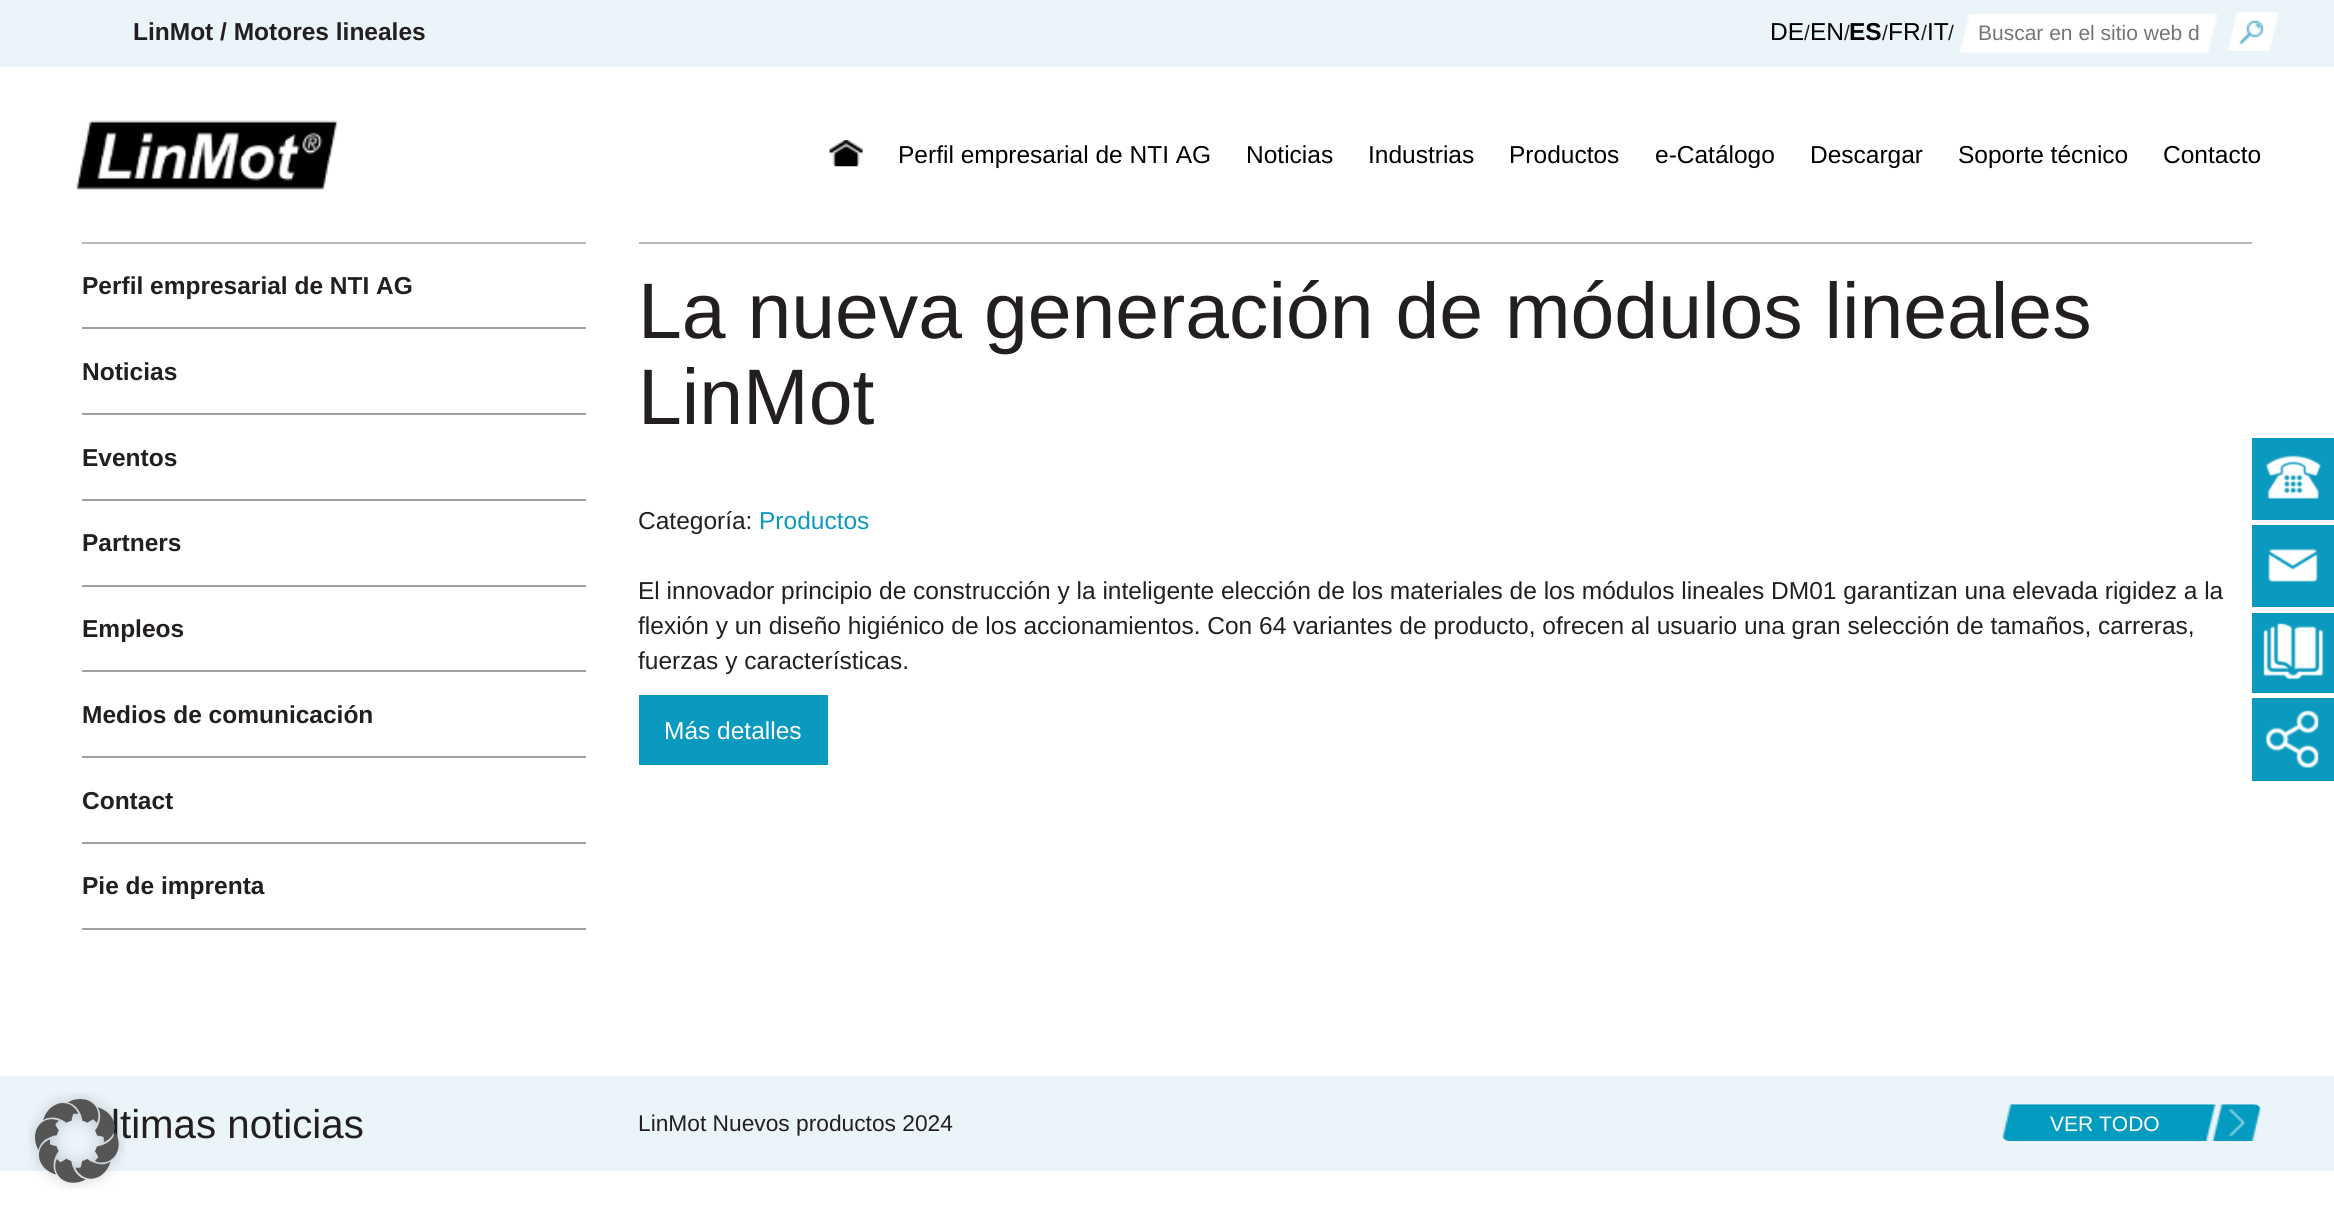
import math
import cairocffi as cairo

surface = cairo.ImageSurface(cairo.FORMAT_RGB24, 2334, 1218)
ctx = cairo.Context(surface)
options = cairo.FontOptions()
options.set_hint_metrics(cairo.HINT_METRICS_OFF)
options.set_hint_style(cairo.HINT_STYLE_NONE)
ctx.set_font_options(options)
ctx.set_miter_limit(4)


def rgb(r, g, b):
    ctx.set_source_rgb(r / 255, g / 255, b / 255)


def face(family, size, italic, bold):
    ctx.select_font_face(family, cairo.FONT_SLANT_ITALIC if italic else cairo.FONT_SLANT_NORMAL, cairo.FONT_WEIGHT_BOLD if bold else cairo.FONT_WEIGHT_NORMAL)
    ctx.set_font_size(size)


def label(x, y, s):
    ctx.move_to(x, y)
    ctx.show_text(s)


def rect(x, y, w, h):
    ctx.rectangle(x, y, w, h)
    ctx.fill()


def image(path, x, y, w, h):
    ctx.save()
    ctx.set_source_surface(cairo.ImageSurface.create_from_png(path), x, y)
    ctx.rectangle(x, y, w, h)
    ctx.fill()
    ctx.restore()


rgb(255, 255, 255)
ctx.paint()
rgb(235, 244, 249)
rect(0, 0, 2334, 67)
face('Liberation Sans', 24.5, 0, 1)
rgb(35, 31, 32)
label(133, 40, 'LinMot / Motores lineales')
face('Liberation Sans', 24.5, 0, 0)
rgb(0, 0, 0)
label(1770, 40, 'DE')
face('Liberation Sans', 21, 0, 0)
rgb(35, 31, 32)
label(1804, 40, '/')
face('Liberation Sans', 24.5, 0, 0)
rgb(0, 0, 0)
label(1810, 40, 'EN')
face('Liberation Sans', 21, 0, 0)
rgb(35, 31, 32)
label(1844, 40, '/')
face('Liberation Sans', 24.5, 0, 1)
rgb(0, 0, 0)
label(1849, 40, 'ES')
face('Liberation Sans', 21, 0, 0)
rgb(35, 31, 32)
label(1882, 40, '/')
face('Liberation Sans', 24.5, 0, 0)
rgb(0, 0, 0)
label(1888, 40, 'FR')
face('Liberation Sans', 21, 0, 0)
rgb(35, 31, 32)
label(1921, 40, '/')
face('Liberation Sans', 24.5, 0, 0)
rgb(0, 0, 0)
label(1927, 40, 'IT')
face('Liberation Sans', 21, 0, 0)
rgb(35, 31, 32)
label(1948, 40, '/')
image('image0.png', 1960, 14, 258, 39)
rgb(117, 117, 117)
label(1978, 40, 'Buscar en el sitio web d')
image('image1.png', 2227, 12, 52, 39)
image('image2.png', 76, 120, 262, 70)
image('image3.png', 829, 140, 34, 27)
face('Liberation Sans', 24.5, 0, 0)
rgb(0, 0, 0)
label(898, 163, 'Perfil empresarial de NTI AG')
label(1246, 163, 'Noticias')
label(1368, 163, 'Industrias')
label(1509, 163, 'Productos')
label(1655, 163, 'e-Catálogo')
label(1810, 163, 'Descargar')
label(1958, 163, 'Soporte técnico')
label(2163, 163, 'Contacto')
rgb(182, 183, 184)
rect(82, 242, 504, 2)
rgb(157, 159, 162)
rect(82, 327, 504, 2)
face('Liberation Sans', 24.5, 0, 1)
rgb(35, 31, 32)
label(82, 294, 'Perfil empresarial de NTI AG')
rgb(157, 159, 162)
rect(82, 413, 504, 2)
rgb(35, 31, 32)
label(82, 380, 'Noticias')
rgb(157, 159, 162)
rect(82, 499, 504, 2)
rgb(35, 31, 32)
label(82, 466, 'Eventos')
rgb(157, 159, 162)
rect(82, 585, 504, 2)
rgb(35, 31, 32)
label(82, 551, 'Partners')
rgb(157, 159, 162)
rect(82, 670, 504, 2)
rgb(35, 31, 32)
label(82, 637, 'Empleos')
rgb(157, 159, 162)
rect(82, 756, 504, 2)
rgb(35, 31, 32)
label(82, 723, 'Medios de comunicación')
rgb(157, 159, 162)
rect(82, 842, 504, 2)
rgb(35, 31, 32)
label(82, 809, 'Contact')
rgb(157, 159, 162)
rect(82, 928, 504, 2)
rgb(35, 31, 32)
label(82, 894, 'Pie de imprenta')
rgb(182, 183, 184)
rect(639, 242, 1613, 2)
face('Liberation Sans', 78.75, 0, 0)
rgb(35, 31, 32)
label(638, 338, 'La nueva generación de módulos lineales')
label(638, 424, 'LinMot')
face('Liberation Sans', 24.5, 0, 0)
label(638, 529, 'Categoría:')
rgb(11, 154, 191)
label(759, 529, 'Productos')
rgb(35, 31, 32)
label(638, 599, 'El innovador principio de construcción y la inteligente elección de los materiales de los módulos lineales DM01 garantizan una elevada rigidez a la')
label(638, 634, 'flexión y un diseño higiénico de los accionamientos. Con 64 variantes de producto, ofrecen al usuario una gran selección de tamaños, carreras,')
label(638, 669, 'fuerzas y características.')
rgb(11, 154, 191)
rect(639, 695, 189, 70)
rgb(255, 255, 255)
label(664, 739, 'Más detalles')
rgb(235, 244, 249)
rect(0, 1076, 2334, 95)
face('Liberation Sans', 40.25, 0, 0)
rgb(35, 31, 32)
label(111, 1138, 'ltimas noticias')
face('Liberation Sans', 22.75, 0, 0)
label(638, 1131, 'LinMot Nuevos productos 2024')
image('image4.png', 2002, 1104, 259, 37)
face('Liberation Sans', 21, 0, 0)
rgb(255, 255, 255)
label(2050, 1131, 'VER TODO')
rgb(11, 154, 191)
rect(2252, 438, 82, 82)
image('image5.png', 2266, 455, 56, 44)
rect(2252, 525, 82, 82)
image('image6.png', 2268, 548, 50, 34)
rect(2252, 613, 82, 80)
image('image7.png', 2263, 623, 61, 57)
rect(2252, 698, 82, 83)
image('image8.png', 2266, 710, 53, 58)
image('image9.png', 28, 1092, 98, 98)
surface.write_to_png('render.png')
